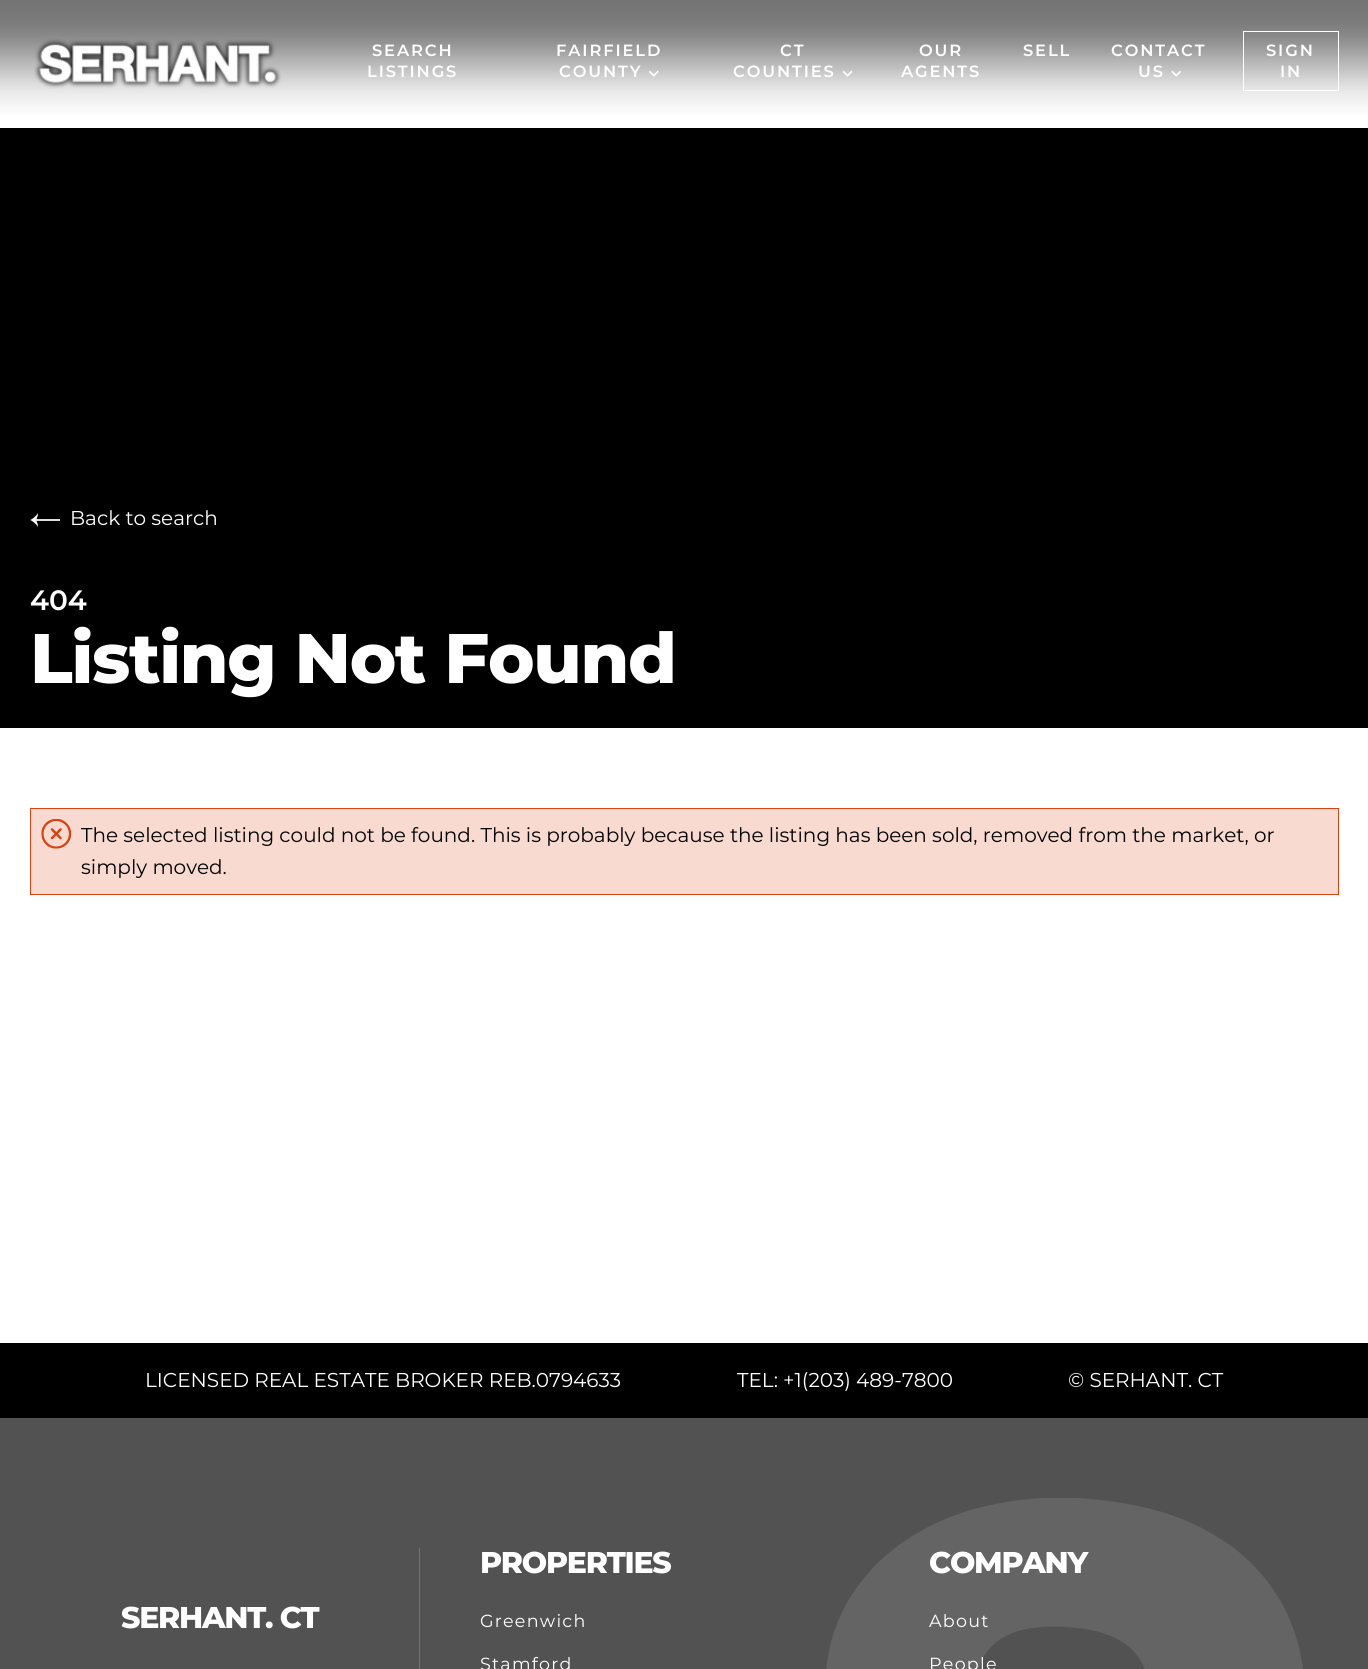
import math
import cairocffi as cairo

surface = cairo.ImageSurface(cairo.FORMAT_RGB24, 1368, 1669)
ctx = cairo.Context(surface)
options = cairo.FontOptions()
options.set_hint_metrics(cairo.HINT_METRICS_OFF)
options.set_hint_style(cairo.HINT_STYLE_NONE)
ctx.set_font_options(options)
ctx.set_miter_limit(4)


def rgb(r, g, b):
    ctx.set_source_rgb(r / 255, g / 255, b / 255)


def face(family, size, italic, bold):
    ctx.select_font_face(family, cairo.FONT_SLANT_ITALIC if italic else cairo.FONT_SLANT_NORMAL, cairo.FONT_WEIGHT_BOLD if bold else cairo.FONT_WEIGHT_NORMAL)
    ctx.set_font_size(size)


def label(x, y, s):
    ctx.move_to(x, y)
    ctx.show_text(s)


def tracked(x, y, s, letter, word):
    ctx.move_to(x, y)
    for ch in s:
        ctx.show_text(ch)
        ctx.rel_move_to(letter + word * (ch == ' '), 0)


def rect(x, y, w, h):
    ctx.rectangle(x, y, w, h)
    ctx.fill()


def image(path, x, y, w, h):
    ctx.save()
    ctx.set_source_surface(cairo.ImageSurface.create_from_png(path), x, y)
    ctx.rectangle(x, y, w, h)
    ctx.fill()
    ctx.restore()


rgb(255, 255, 255)
ctx.paint()
gradient = cairo.LinearGradient(684, 128, 684, 0)
gradient.add_color_stop_rgba(0, 1, 1, 1, 1)
gradient.add_color_stop_rgba(0.08, 0.996, 0.996, 0.996, 1)
gradient.add_color_stop_rgba(0.15, 0.976, 0.976, 0.976, 1)
gradient.add_color_stop_rgba(0.23, 0.941, 0.941, 0.941, 1)
gradient.add_color_stop_rgba(0.29, 0.91, 0.91, 0.91, 1)
gradient.add_color_stop_rgba(0.35, 0.863, 0.863, 0.863, 1)
gradient.add_color_stop_rgba(0.41, 0.812, 0.812, 0.812, 1)
gradient.add_color_stop_rgba(0.47, 0.753, 0.753, 0.753, 1)
gradient.add_color_stop_rgba(0.53, 0.702, 0.702, 0.702, 1)
gradient.add_color_stop_rgba(0.59, 0.643, 0.643, 0.643, 1)
gradient.add_color_stop_rgba(0.65, 0.592, 0.592, 0.592, 1)
gradient.add_color_stop_rgba(0.71, 0.545, 0.545, 0.545, 1)
gradient.add_color_stop_rgba(0.78, 0.506, 0.506, 0.506, 1)
gradient.add_color_stop_rgba(0.84, 0.482, 0.482, 0.482, 1)
gradient.add_color_stop_rgba(0.92, 0.463, 0.463, 0.463, 1)
gradient.add_color_stop_rgba(1, 0.451, 0.451, 0.451, 1)
ctx.set_source(gradient)
rect(0, 0, 1368, 115)
image('image0.png', 34, 39, 247, 50)
face('Montserrat SemiBold', 16.25, 0, 0)
rgb(255, 255, 255)
tracked(372, 56, 'SEARCH', 1.9, 0)
tracked(367, 77, 'LISTINGS', 1.9, 0)
tracked(556, 56, 'FAIRFIELD', 1.9, 0)
tracked(559, 77, 'COUNTY', 1.9, 0)
image('image1.png', 649, 70, 10, 7)
tracked(780, 56, 'CT', 1.9, 0)
tracked(733, 77, 'COUNTIES', 1.9, 0)
image('image2.png', 843, 70, 10, 7)
tracked(919, 56, 'OUR', 1.9, 0)
tracked(901, 77, 'AGENTS', 1.9, 0)
tracked(1023, 56, 'SELL', 1.9, 0)
tracked(1111, 56, 'CONTACT', 1.9, 0)
tracked(1138, 77, 'US', 1.9, 0)
image('image3.png', 1171, 70, 10, 7)
ctx.rectangle(1243.5, 31.5, 95, 59)
ctx.set_line_width(1)
ctx.stroke()
tracked(1266, 56, 'SIGN', 1.9, 0)
tracked(1280, 77, 'IN', 1.9, 0)
rgb(0, 0, 0)
rect(0, 128, 1368, 600)
image('image4.png', 30, 513, 30, 14)
face('Montserrat', 20, 0, 0)
rgb(255, 255, 255)
label(70, 525, 'Back to search')
face('Montserrat SemiBold', 28, 0, 0)
label(30, 610, '404')
face('Montserrat Thin', 70, 0, 0)
tracked(30, 683, 'Listing Not Found', -1.25, 0)
rgb(248, 218, 209)
ctx.rectangle(30.5, 808.5, 1308, 86)
ctx.fill_preserve()
rgb(216, 67, 21)
ctx.stroke()
image('image5.png', 41, 819, 30, 30)
face('Montserrat', 20, 0, 0)
rgb(0, 0, 0)
label(81, 842, 'The selected listing could not be found. This is probably because the listing has been sold, removed from the market, or')
label(81, 874, 'simply moved.')
rect(0, 1343, 1368, 75)
rgb(255, 255, 255)
label(145, 1387, 'LICENSED REAL ESTATE BROKER REB.0794633')
label(737, 1387, 'TEL: +1(203) 489-7800')
label(1068, 1387, '© SERHANT. CT')
rgb(82, 82, 82)
rect(0, 1418, 1368, 251)
image('image6.png', 826, 1498, 477, 171)
face('Montserrat Thin', 30, 0, 0)
rgb(255, 255, 255)
tracked(121, 1628, 'SERHANT. CT', -1.25, 0)
rgb(117, 117, 117)
rect(419, 1548, 1, 121)
rgb(255, 255, 255)
tracked(480, 1573, 'PROPERTIES', -1.25, 0)
face('Montserrat', 17.5, 0, 0)
tracked(480, 1627, 'Greenwich', 1.25, 0)
tracked(480, 1670, 'Stamford', 1.25, 0)
face('Montserrat Thin', 30, 0, 0)
tracked(929, 1573, 'COMPANY', -1.25, 0)
face('Montserrat', 17.5, 0, 0)
tracked(929, 1627, 'About', 1.25, 0)
tracked(929, 1670, 'People', 1.25, 0)
surface.write_to_png('render.png')
